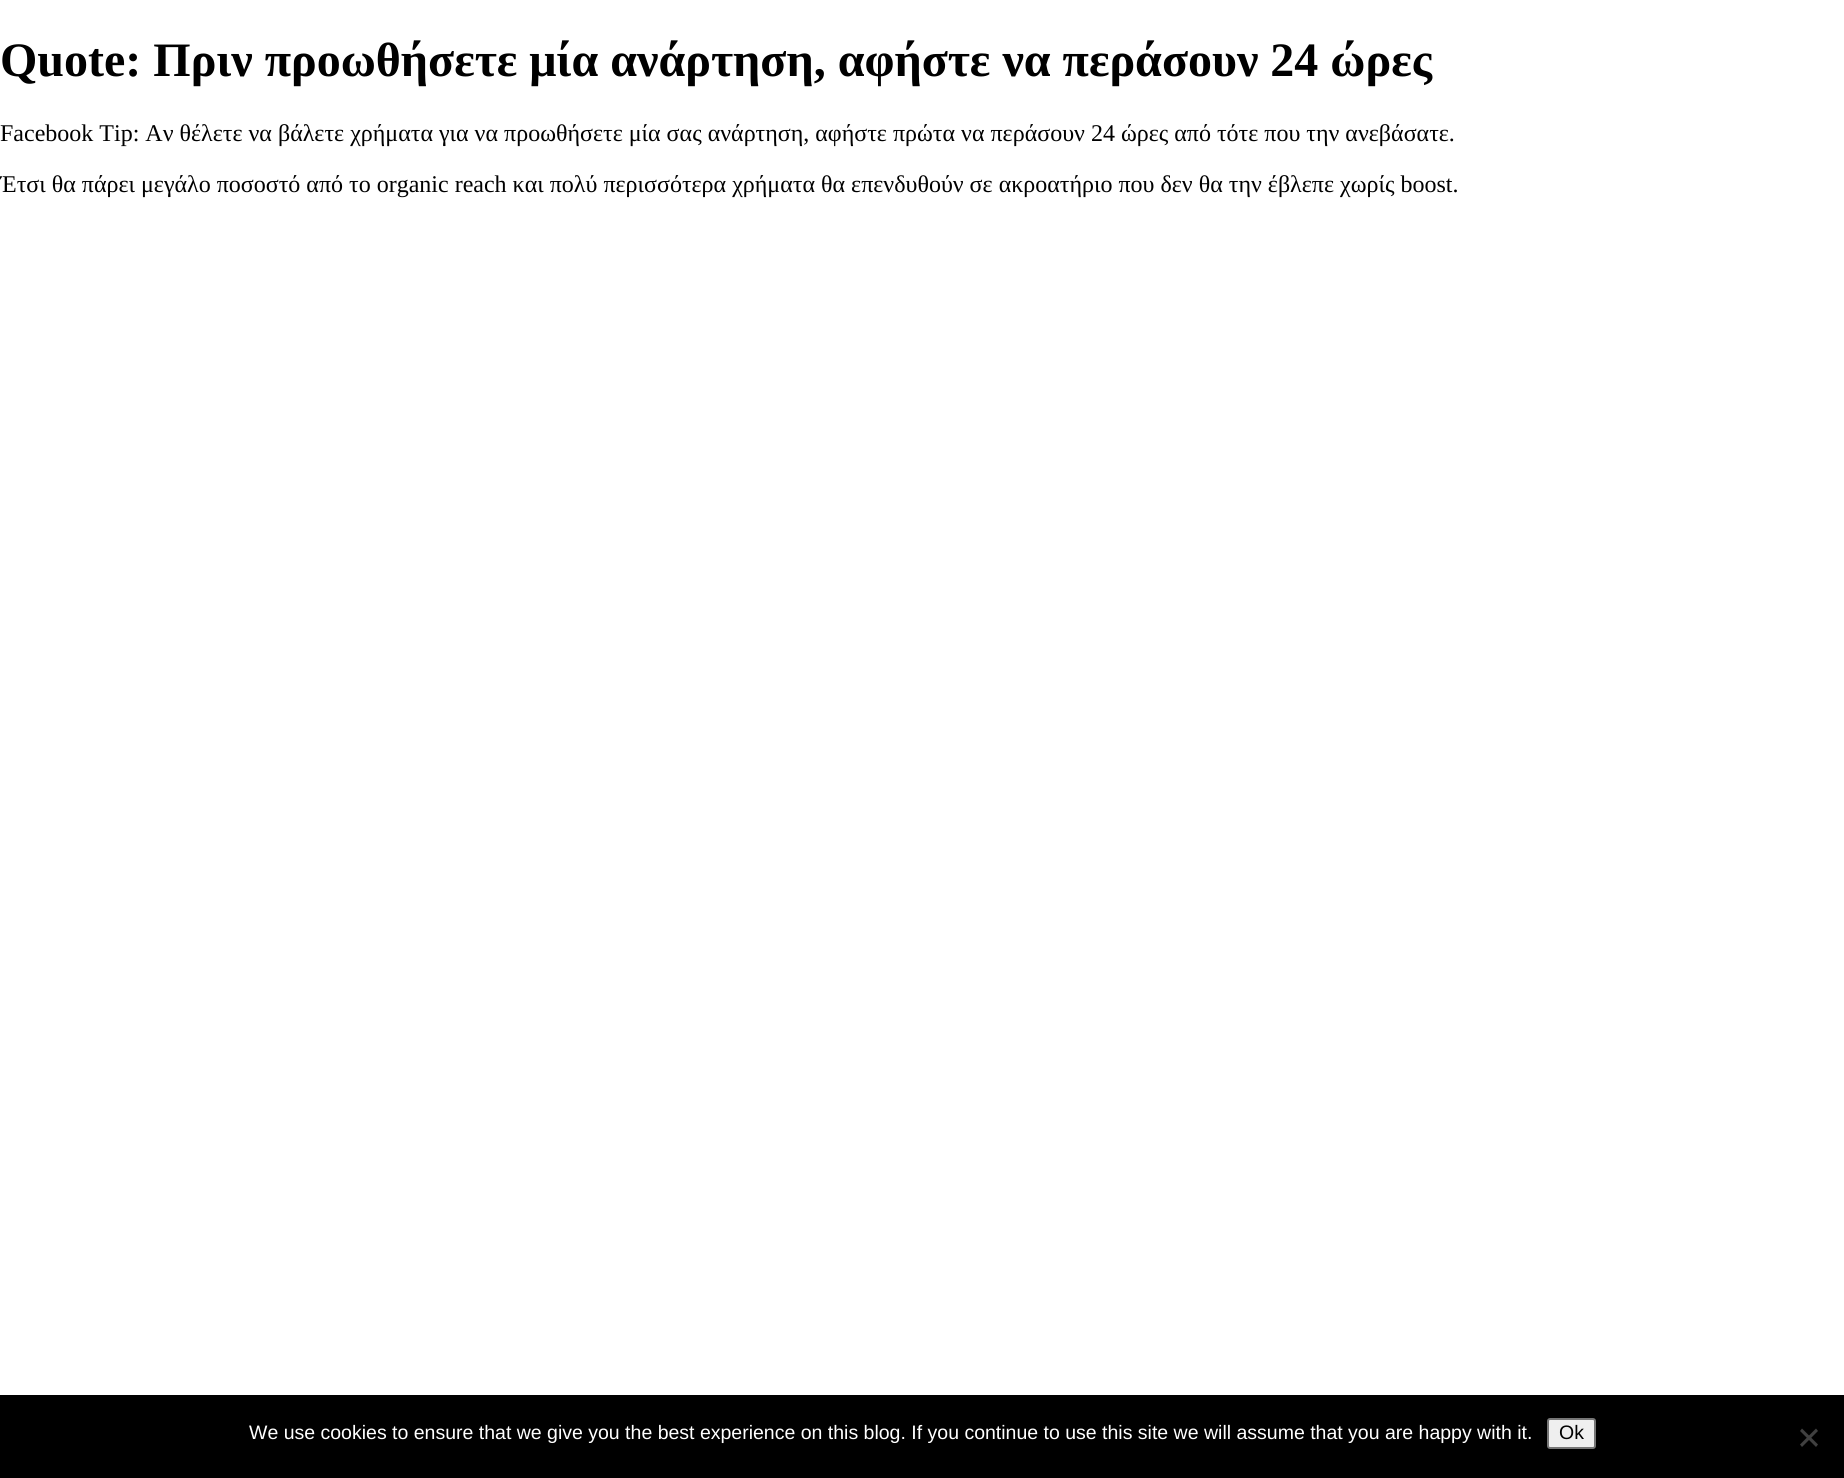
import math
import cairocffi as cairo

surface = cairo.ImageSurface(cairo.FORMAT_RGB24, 1844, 1478)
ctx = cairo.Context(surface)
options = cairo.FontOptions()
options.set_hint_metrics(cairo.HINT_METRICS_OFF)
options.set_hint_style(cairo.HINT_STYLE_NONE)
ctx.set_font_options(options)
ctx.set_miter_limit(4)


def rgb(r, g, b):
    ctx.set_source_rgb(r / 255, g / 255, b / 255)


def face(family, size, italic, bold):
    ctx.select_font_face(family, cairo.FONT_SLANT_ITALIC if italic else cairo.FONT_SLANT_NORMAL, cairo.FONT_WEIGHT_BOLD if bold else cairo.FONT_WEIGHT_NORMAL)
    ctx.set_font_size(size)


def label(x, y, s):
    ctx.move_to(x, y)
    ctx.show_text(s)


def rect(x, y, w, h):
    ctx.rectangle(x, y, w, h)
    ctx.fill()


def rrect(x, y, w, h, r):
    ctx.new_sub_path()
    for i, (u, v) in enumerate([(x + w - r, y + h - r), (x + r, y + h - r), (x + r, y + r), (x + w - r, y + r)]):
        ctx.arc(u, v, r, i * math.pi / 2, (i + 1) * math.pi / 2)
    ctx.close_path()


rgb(255, 255, 255)
ctx.paint()
face('Liberation Serif', 48, 0, 1)
rgb(0, 0, 0)
label(0, 76, 'Quote: Πριν προωθήσετε μία ανάρτηση, αφήστε να περάσουν 24 ώρες')
face('Liberation Serif', 24, 0, 0)
label(0, 141, 'Facebook Tip: Αν θέλετε να βάλετε χρήματα για να προωθήσετε μία σας ανάρτηση, αφήστε πρώτα να περάσουν 24 ώρες από τότε που την ανεβάσατε.')
label(0, 192, 'Έτσι θα πάρει μεγάλο ποσοστό από το organic reach και πολύ περισσότερα χρήματα θα επενδυθούν σε ακροατήριο που δεν θα την έβλεπε χωρίς boost.')
rect(0, 1395, 1844, 83)
face('Liberation Sans', 19.5, 0, 0)
rgb(255, 255, 255)
label(249, 1439, 'We use cookies to ensure that we give you the best experience on this blog. If you continue to use this site we will assume that you are happy with it.')
rgb(239, 239, 239)
rrect(1548, 1419, 47, 29, 2)
ctx.fill_preserve()
rgb(118, 118, 118)
ctx.stroke()
rgb(0, 0, 0)
label(1559, 1439, 'Ok')
rgb(64, 64, 64)
ctx.new_path()
ctx.move_to(1816, 1428.5)
ctx.line_to(1818, 1431)
ctx.line_to(1802, 1447)
ctx.line_to(1800, 1444.5)
ctx.close_path()
ctx.fill()
ctx.new_path()
ctx.move_to(1800, 1431)
ctx.line_to(1802, 1428.5)
ctx.line_to(1818, 1444.5)
ctx.line_to(1816, 1447)
ctx.close_path()
ctx.fill()
surface.write_to_png('render.png')
